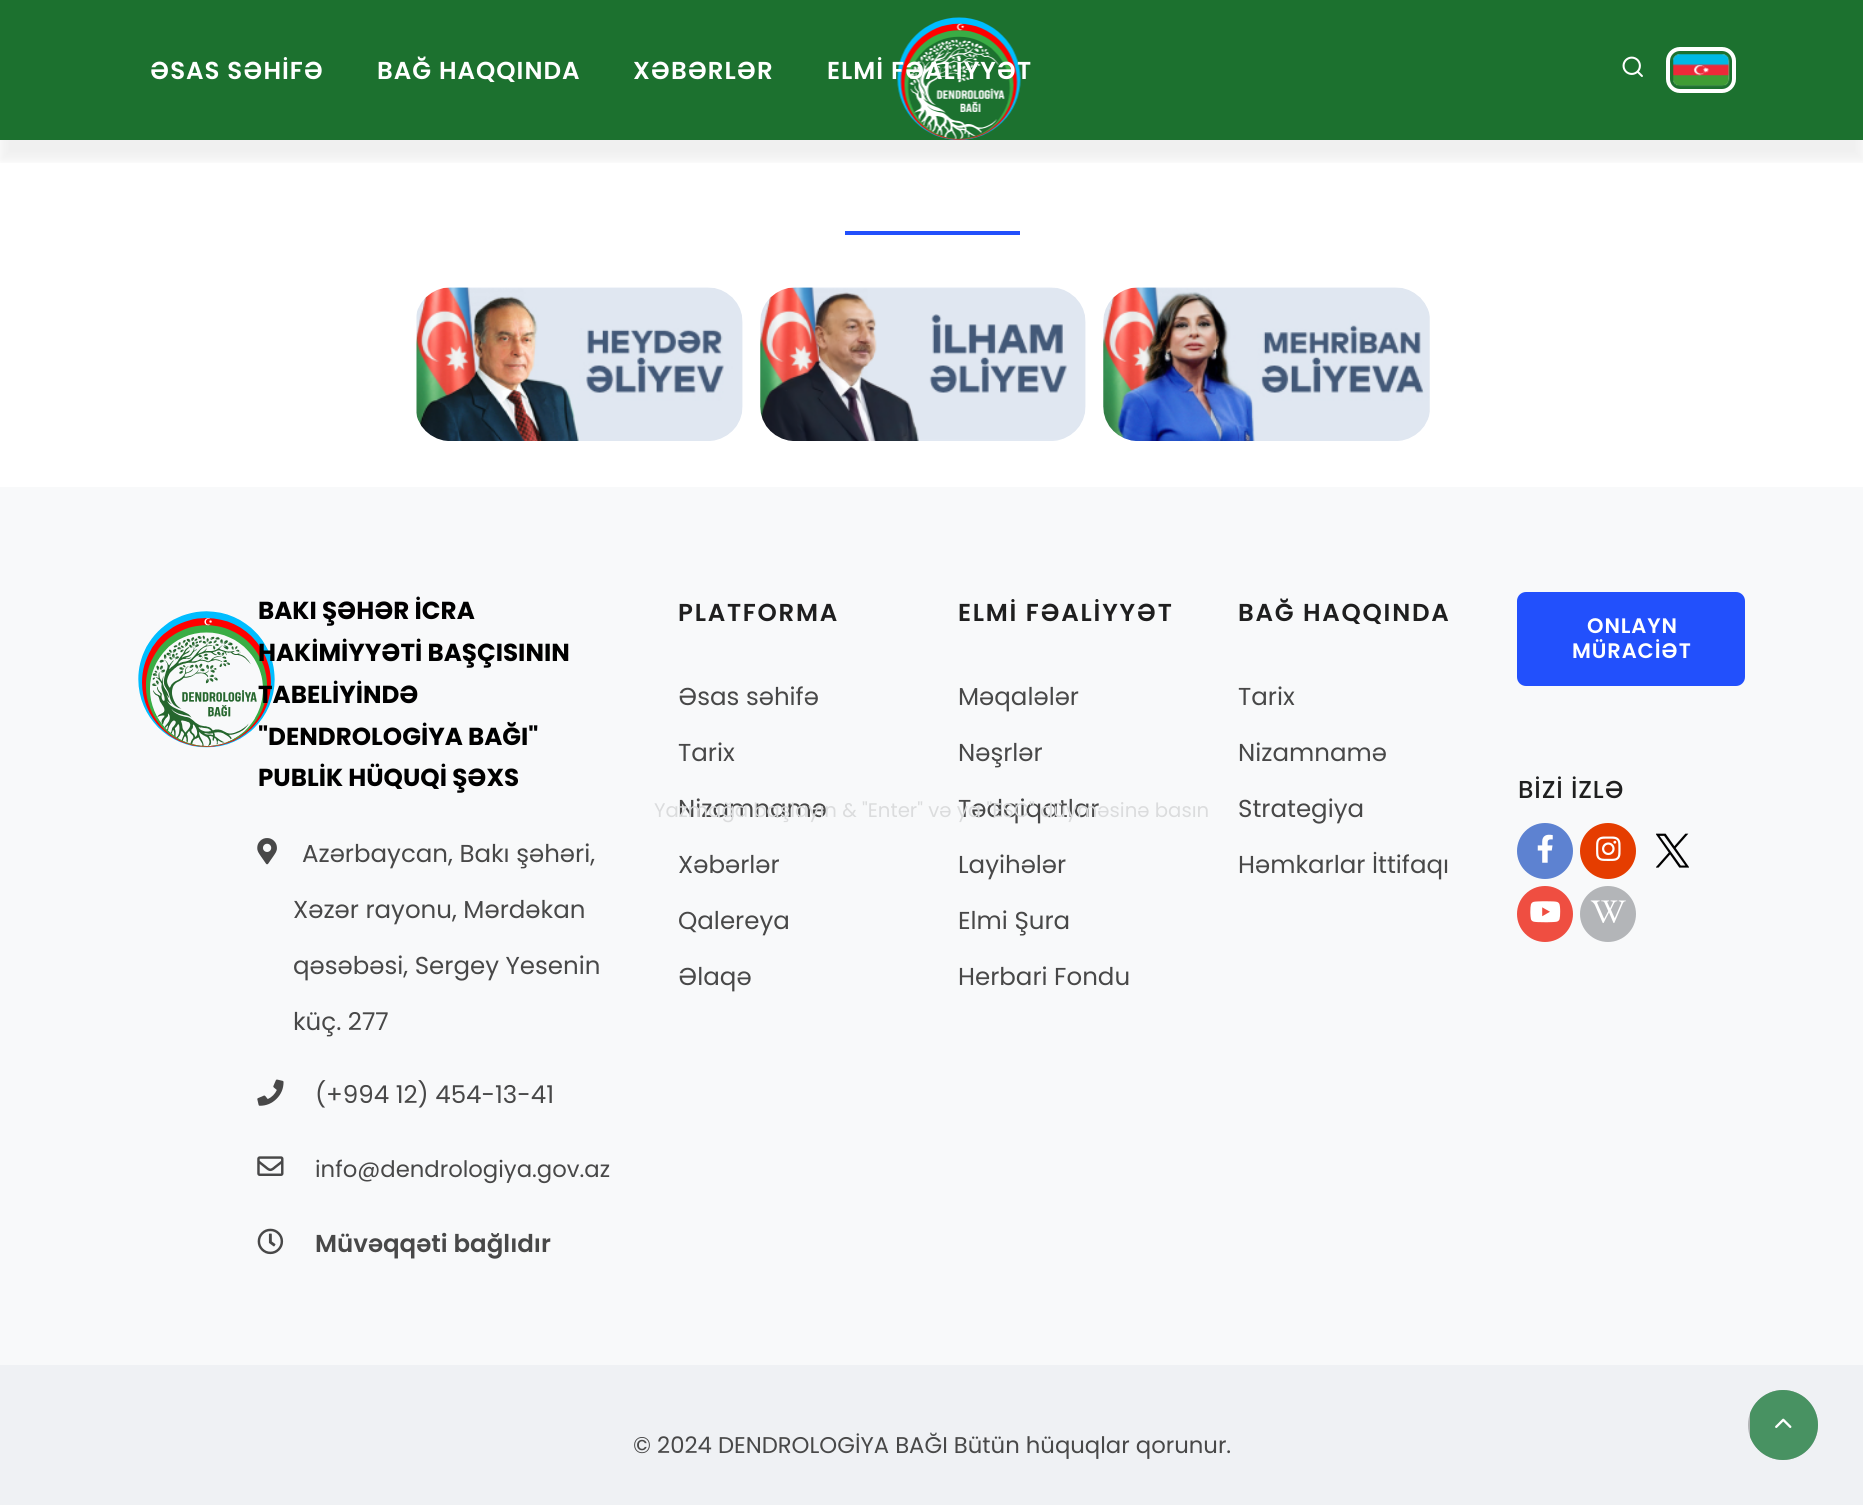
import math
import cairocffi as cairo

surface = cairo.ImageSurface(cairo.FORMAT_RGB24, 1863, 1505)
ctx = cairo.Context(surface)
options = cairo.FontOptions()
options.set_hint_metrics(cairo.HINT_METRICS_OFF)
options.set_hint_style(cairo.HINT_STYLE_NONE)
ctx.set_font_options(options)
ctx.set_miter_limit(4)


def rgb(r, g, b):
    ctx.set_source_rgb(r / 255, g / 255, b / 255)


def face(family, size, italic, bold):
    ctx.select_font_face(family, cairo.FONT_SLANT_ITALIC if italic else cairo.FONT_SLANT_NORMAL, cairo.FONT_WEIGHT_BOLD if bold else cairo.FONT_WEIGHT_NORMAL)
    ctx.set_font_size(size)


def label(x, y, s):
    ctx.move_to(x, y)
    ctx.show_text(s)


def tracked(x, y, s, letter, word):
    ctx.move_to(x, y)
    for ch in s:
        ctx.show_text(ch)
        ctx.rel_move_to(letter + word * (ch == ' '), 0)


def rect(x, y, w, h):
    ctx.rectangle(x, y, w, h)
    ctx.fill()


def rrect(x, y, w, h, r):
    ctx.new_sub_path()
    for i, (u, v) in enumerate([(x + w - r, y + h - r), (x + r, y + h - r), (x + r, y + r), (x + w - r, y + r)]):
        ctx.arc(u, v, r, i * math.pi / 2, (i + 1) * math.pi / 2)
    ctx.close_path()


def soft_shadow(x, y, w, h, r, blur, alpha):
    ctx.push_group_with_content(cairo.CONTENT_ALPHA)
    ctx.set_operator(cairo.OPERATOR_SOURCE)
    for i in range(15, -16, -2):
        e = blur * i / 6
        if min(w, h) + 2 * e > 0:
            ctx.set_source_rgba(0, 0, 0, alpha * math.erfc((i - 1) / 8.5) / 2)
            rrect(x - e, y - e, w + 2 * e, h + 2 * e, max(0, min(r + e + blur * .6, min(w, h) / 2 + e)))
            ctx.fill()
    ctx.mask(ctx.pop_group())


def image(path, x, y, w, h):
    ctx.save()
    ctx.set_source_surface(cairo.ImageSurface.create_from_png(path), x, y)
    ctx.rectangle(x, y, w, h)
    ctx.fill()
    ctx.restore()


rgb(255, 255, 255)
ctx.paint()
ctx.save()
ctx.rectangle(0, 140, 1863, 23)
ctx.clip()
rgb(0, 0, 0)
soft_shadow(0, 21, 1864, 140, 0, 5, 0.06)
ctx.restore()
ctx.set_source_rgba(0.067, 0.416, 0.145, 0.95)
rect(0, 0, 1863, 140)
image('image0.png', 897, 17, 124, 123)
image('image1.png', 1622, 56, 21, 21)
image('image2.png', 1673, 54, 57, 33)
rrect(1668, 49, 66, 42, 12)
rgb(255, 255, 255)
ctx.set_line_width(4)
ctx.stroke()
face('Poppins SemiBold', 24.5, 0, 0)
tracked(150, 79, 'ƏSAS SƏHİFƏ', 1, 0)
tracked(377, 79, 'BAĞ HAQQINDA', 1, 0)
tracked(633, 79, 'XƏBƏRLƏR', 1, 0)
tracked(827, 79, 'ELMİ FƏALİYYƏT', 1, 0)
rgb(248, 249, 250)
rect(0, 487, 1863, 878)
face('Poppins', 24.5, 0, 0)
rgb(72, 72, 72)
label(678, 817, 'Nizamnamə')
label(958, 817, 'Tədqiqatlar')
face('Poppins', 19.7, 0, 0)
rgb(219, 220, 221)
label(654, 817, 'Yazmağa başlayın & "Enter" və ya "ESC" düyməsinə basın')
rgb(34, 80, 252)
rect(845, 231, 175, 4)
image('image3.png', 416, 287, 327, 154)
image('image4.png', 760, 287, 326, 154)
image('image5.png', 1103, 287, 327, 154)
image('image6.png', 138, 611, 137, 137)
face('Poppins', 24.6, 0, 1)
rgb(0, 0, 0)
label(258, 619, 'BAKI ŞƏHƏR İCRA')
label(258, 661, 'HAKİMİYYƏTİ BAŞÇISININ')
label(258, 703, 'TABELİYİNDƏ')
label(258, 745, '"DENDROLOGİYA BAĞI"')
label(258, 786, 'PUBLİK HÜQUQİ ŞƏXS')
image('image7.png', 257, 838, 20, 27)
face('Poppins', 24.5, 0, 0)
rgb(72, 72, 72)
label(302, 862, 'Azərbaycan, Bakı şəhəri,')
label(293, 918, 'Xəzər rayonu, Mərdəkan')
label(293, 974, 'qəsəbəsi, Sergey Yesenin')
label(293, 1030, 'küç. 277')
image('image8.png', 257, 1079, 27, 27)
label(315, 1103, '(+994 12) 454-13-41')
image('image9.png', 257, 1156, 27, 20)
face('Poppins', 22.75, 0, 0)
label(315, 1177, 'info@dendrologiya.gov.az')
image('image10.png', 257, 1228, 27, 27)
face('Poppins SemiBold', 24.5, 0, 0)
label(315, 1252, 'Müvəqqəti bağlıdır')
rgb(31, 31, 31)
tracked(678, 621, 'PLATFORMA', 1.75, 0)
face('Poppins', 24.5, 0, 0)
rgb(72, 72, 72)
label(678, 705, 'Əsas səhifə')
label(678, 761, 'Tarix')
label(678, 873, 'Xəbərlər')
label(678, 929, 'Qalereya')
label(678, 985, 'Əlaqə')
face('Poppins SemiBold', 24.5, 0, 0)
rgb(31, 31, 31)
tracked(958, 621, 'ELMİ FƏALİYYƏT', 1.75, 0)
face('Poppins', 24.5, 0, 0)
rgb(72, 72, 72)
label(958, 705, 'Məqalələr')
label(958, 761, 'Nəşrlər')
label(958, 873, 'Layihələr')
label(958, 929, 'Elmi Şura')
label(958, 985, 'Herbari Fondu')
face('Poppins SemiBold', 24.5, 0, 0)
rgb(31, 31, 31)
tracked(1238, 621, 'BAĞ HAQQINDA', 1.75, 0)
face('Poppins', 24.5, 0, 0)
rgb(72, 72, 72)
label(1238, 705, 'Tarix')
label(1238, 761, 'Nizamnamə')
label(1238, 817, 'Strategiya')
label(1238, 873, 'Həmkarlar İttifaqı')
rgb(34, 80, 252)
rrect(1518, 593, 226, 92, 8)
ctx.fill_preserve()
ctx.set_line_width(2)
ctx.stroke()
face('Poppins SemiBold', 21, 0, 0)
rgb(255, 255, 255)
tracked(1587, 633, 'ONLAYN', 0.9, 0)
tracked(1572, 658, 'MÜRACİƏT', 0.9, 0)
face('Poppins Medium', 24.5, 0, 0)
rgb(31, 31, 31)
tracked(1518, 798, 'BİZİ İZLƏ', 0.9, 0)
rgb(93, 130, 209)
ctx.new_path()
ctx.arc(1545, 851, 28, 0, 2 * math.pi)
ctx.fill()
image('image11.png', 1537, 834, 16, 29)
rgb(229, 61, 0)
ctx.arc(1608, 851, 28, 0, 2 * math.pi)
ctx.fill()
image('image12.png', 1596, 836, 25, 25)
image('image13.png', 1656, 833, 33, 35)
rgb(239, 78, 65)
ctx.arc(1545, 914, 28, 0, 2 * math.pi)
ctx.fill()
image('image14.png', 1530, 901, 31, 22)
rgb(179, 181, 184)
ctx.arc(1608, 914, 28, 0, 2 * math.pi)
ctx.fill()
image('image15.png', 1590, 900, 36, 23)
rgb(239, 241, 244)
rect(0, 1365, 1863, 140)
face('Poppins', 22.75, 0, 0)
rgb(72, 72, 72)
label(633, 1453, '© 2024 DENDROLOGİYA BAĞI Bütün hüquqlar qorunur.')
rgb(179, 181, 183)
ctx.new_path()
ctx.arc(1783, 1425, 35, 0, 2 * math.pi)
ctx.fill()
ctx.save()
rrect(1748, 1390, 70, 70, 35)
ctx.clip()
rgb(72, 146, 98)
ctx.new_path()
ctx.move_to(1750, 1390)
ctx.line_to(1783, 1390)
ctx.curve_to(1802.5, 1390, 1818, 1405.5, 1818, 1425)
ctx.line_to(1818, 1458)
ctx.line_to(1750, 1458)
ctx.close_path()
ctx.fill()
ctx.restore()
image('image16.png', 1775, 1418, 17, 10)
ctx.save()
rrect(1748, 1390, 70, 70, 35)
ctx.clip()
rgb(72, 146, 98)
rect(1771, 1458, 24, 2)
ctx.restore()
surface.write_to_png('render.png')
